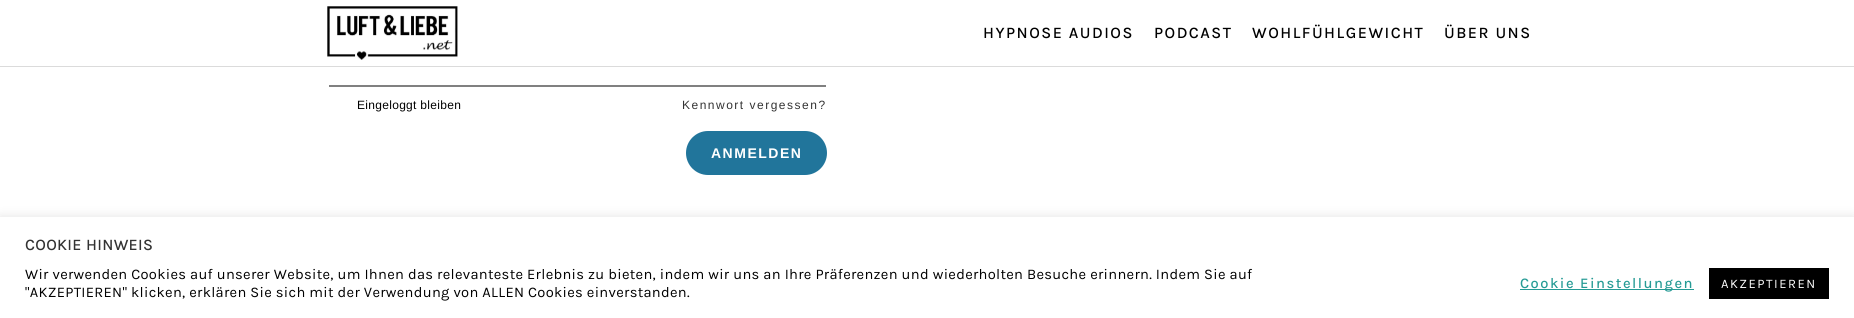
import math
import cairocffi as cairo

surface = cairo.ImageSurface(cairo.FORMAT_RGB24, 1854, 318)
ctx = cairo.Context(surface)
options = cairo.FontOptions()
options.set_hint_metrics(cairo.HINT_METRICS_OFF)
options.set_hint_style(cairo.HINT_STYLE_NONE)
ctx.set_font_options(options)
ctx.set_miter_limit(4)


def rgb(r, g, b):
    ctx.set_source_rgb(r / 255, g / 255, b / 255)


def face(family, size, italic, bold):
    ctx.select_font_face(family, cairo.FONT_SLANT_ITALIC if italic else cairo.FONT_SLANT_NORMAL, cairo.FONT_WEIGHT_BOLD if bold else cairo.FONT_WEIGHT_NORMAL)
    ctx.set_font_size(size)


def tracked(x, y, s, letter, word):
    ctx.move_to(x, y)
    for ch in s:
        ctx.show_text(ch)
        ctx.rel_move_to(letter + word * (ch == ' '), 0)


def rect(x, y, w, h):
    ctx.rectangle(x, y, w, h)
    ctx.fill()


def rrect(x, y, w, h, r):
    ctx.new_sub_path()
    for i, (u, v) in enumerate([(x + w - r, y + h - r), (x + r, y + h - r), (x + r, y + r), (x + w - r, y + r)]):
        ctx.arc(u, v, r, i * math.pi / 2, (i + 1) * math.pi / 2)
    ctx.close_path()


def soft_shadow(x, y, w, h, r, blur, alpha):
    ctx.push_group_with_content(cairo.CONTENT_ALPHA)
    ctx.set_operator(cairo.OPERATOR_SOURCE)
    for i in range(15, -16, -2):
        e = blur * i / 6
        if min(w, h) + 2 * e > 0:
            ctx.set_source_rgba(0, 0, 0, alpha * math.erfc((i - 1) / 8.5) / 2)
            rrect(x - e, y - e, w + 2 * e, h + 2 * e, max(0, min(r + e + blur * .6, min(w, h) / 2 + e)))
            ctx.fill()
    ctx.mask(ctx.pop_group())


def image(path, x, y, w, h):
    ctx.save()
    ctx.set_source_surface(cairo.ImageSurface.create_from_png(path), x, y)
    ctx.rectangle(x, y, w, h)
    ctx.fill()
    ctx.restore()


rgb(255, 255, 255)
ctx.paint()
rgb(219, 219, 219)
rect(0, 66, 1854, 1)
image('image0.png', 327, 6, 131, 54)
face('Karla Medium', 16, 0, 0)
rgb(0, 0, 0)
tracked(983, 38, 'HYPNOSE AUDIOS', 1.5, 0)
tracked(1154, 38, 'PODCAST', 1.5, 0)
tracked(1252, 38, 'WOHLFÜHLGEWICHT', 1.5, 0)
tracked(1444, 38, 'ÜBER UNS', 1.5, 0)
rgb(128, 128, 128)
rect(329, 85, 497, 2)
face('Liberation Sans', 12, 0, 0)
rgb(0, 0, 0)
tracked(357, 109, 'Eingeloggt bleiben', 0.3, 0)
rgb(51, 51, 51)
tracked(682, 109, 'Kennwort vergessen?', 1.5, 0)
rgb(33, 117, 155)
rrect(686, 131, 141, 44, 22)
ctx.fill()
face('Liberation Sans', 14, 0, 1)
rgb(255, 255, 255)
tracked(711, 158, 'ANMELDEN', 1.5, 0)
rgb(172, 171, 171)
soft_shadow(0, 216, 1854, 101, 0, 5, 0.3)
rgb(255, 255, 255)
rect(0, 217, 1854, 101)
face('Karla Medium', 16, 0, 0)
rgb(51, 51, 51)
tracked(25, 250, 'COOKIE HINWEIS', 0.3, 0)
face('Karla', 14.67, 0, 0)
rgb(0, 0, 0)
tracked(25, 279, 'Wir verwenden Cookies auf unserer Website, um Ihnen das relevanteste Erlebnis zu bieten, indem wir uns an Ihre Präferenzen und wiederholten Besuche erinnern. Indem Sie auf', 0.3, 0)
tracked(25, 297, '"AKZEPTIEREN" klicken, erklären Sie sich mit der Verwendung von ALLEN Cookies einverstanden.', 0.3, 0)
rgb(38, 155, 149)
rect(1520, 289, 174, 1)
face('Karla Medium', 14.67, 0, 0)
tracked(1520, 288, 'Cookie Einstellungen', 1.5, 0)
rgb(0, 0, 0)
rect(1709, 268, 120, 31)
face('Karla', 13, 0, 0)
rgb(255, 255, 255)
tracked(1721, 288, 'AKZEPTIEREN', 1.5, 0)
surface.write_to_png('render.png')
